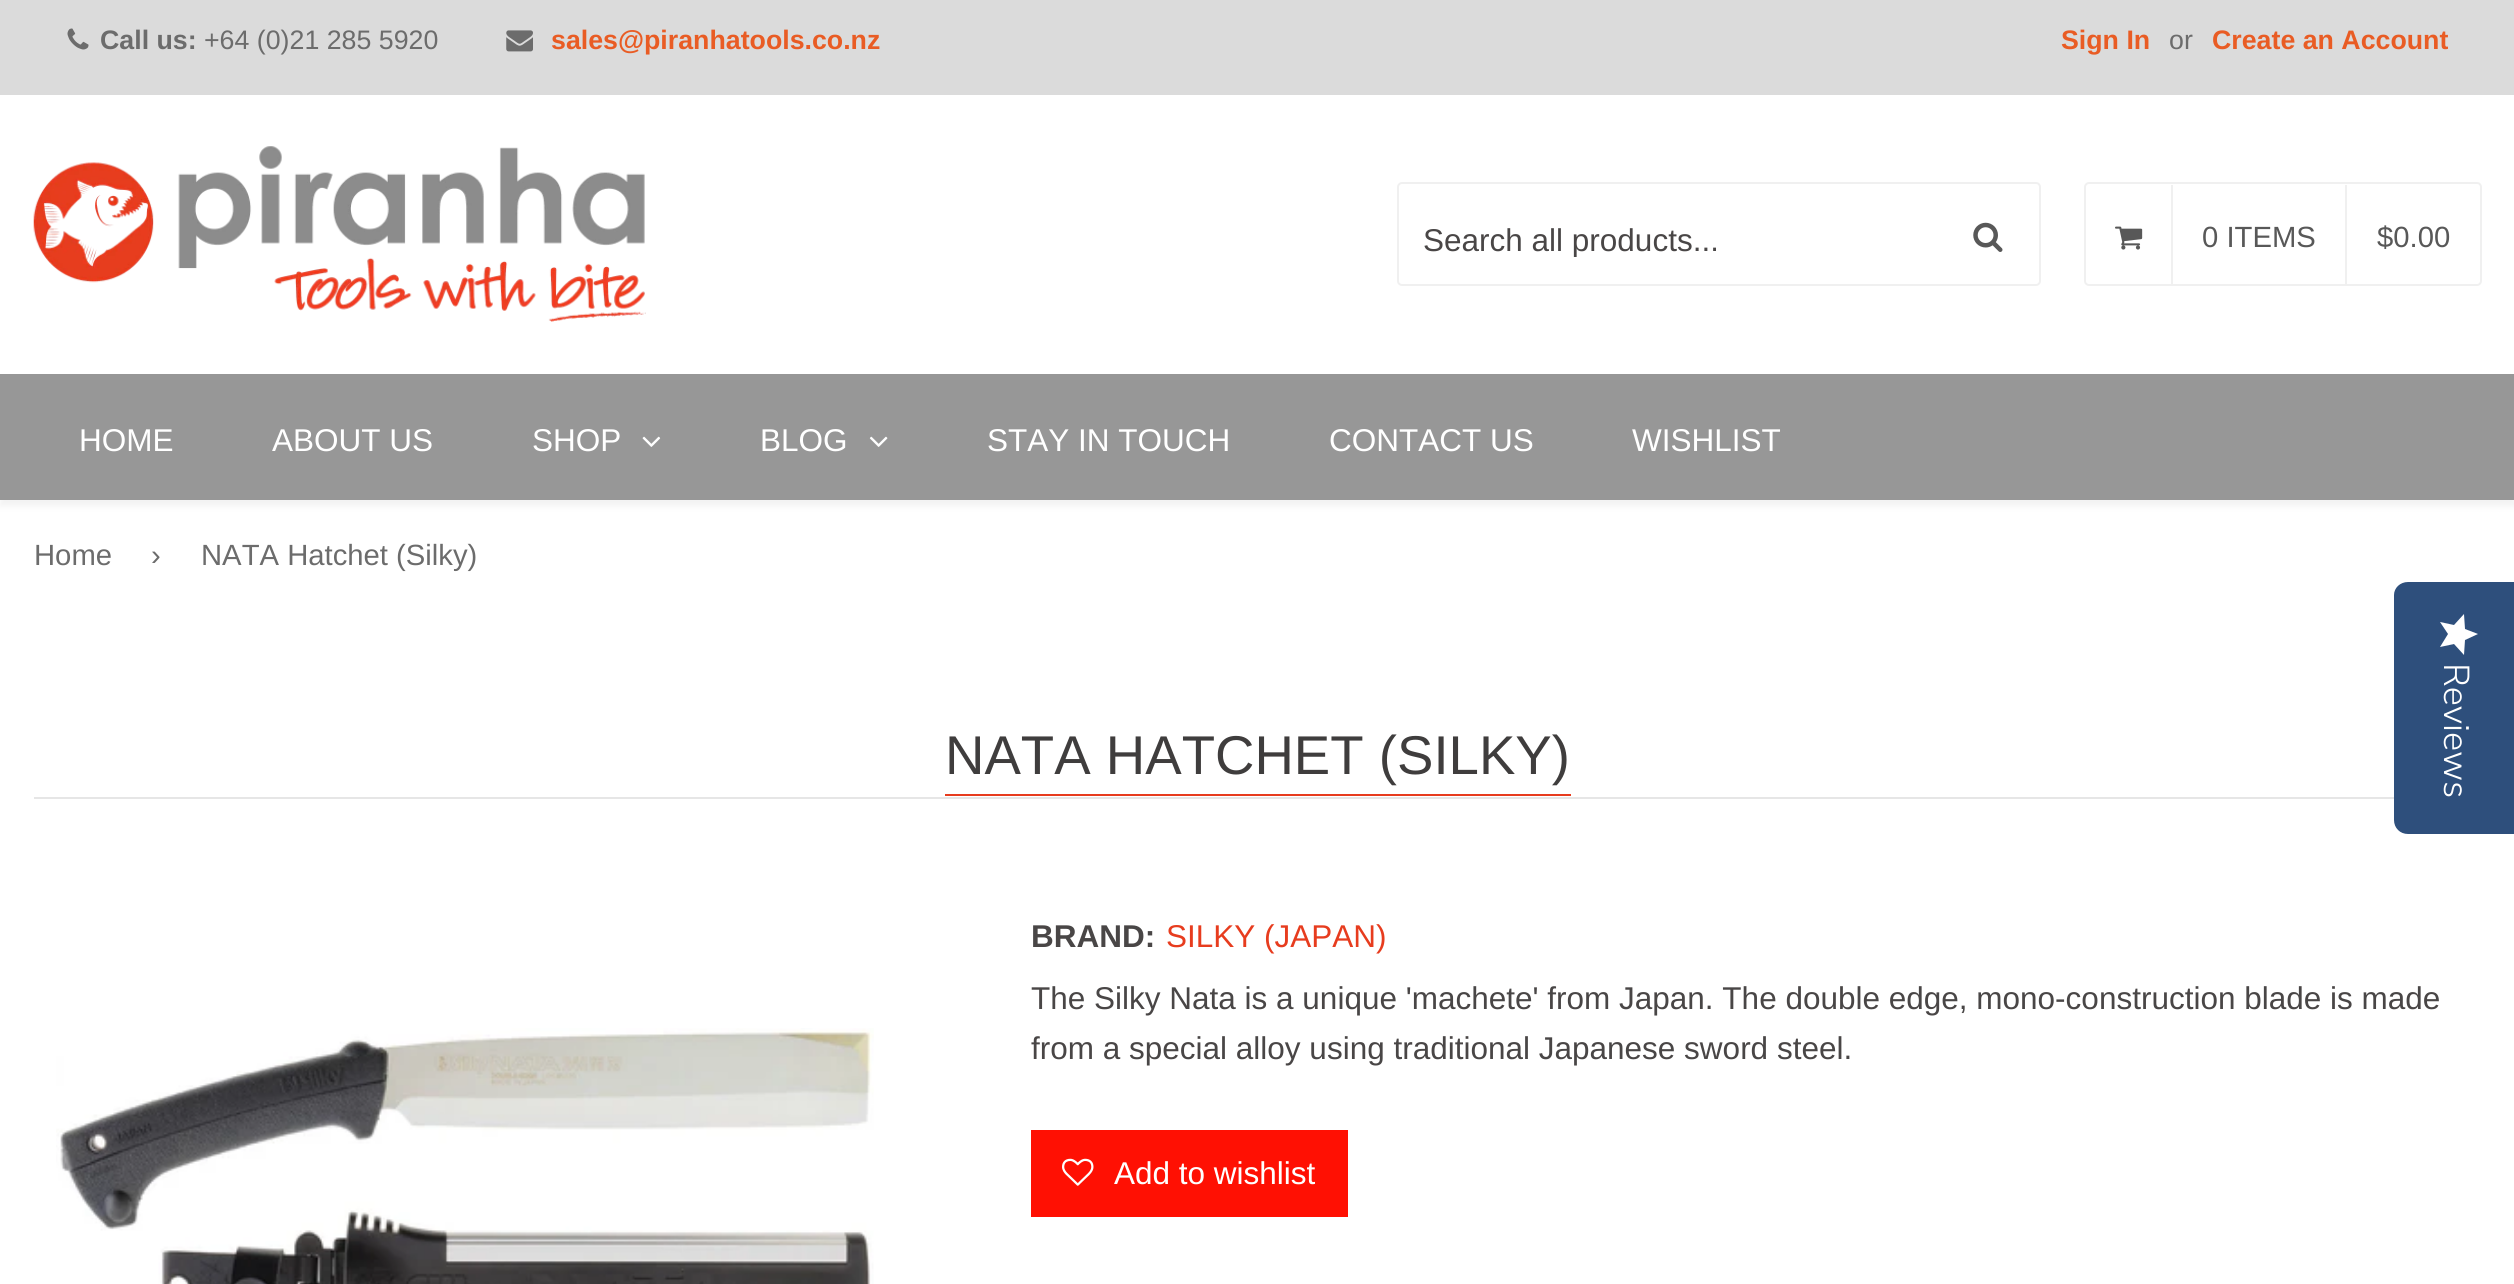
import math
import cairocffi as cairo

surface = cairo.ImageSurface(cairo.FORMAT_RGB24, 2514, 1284)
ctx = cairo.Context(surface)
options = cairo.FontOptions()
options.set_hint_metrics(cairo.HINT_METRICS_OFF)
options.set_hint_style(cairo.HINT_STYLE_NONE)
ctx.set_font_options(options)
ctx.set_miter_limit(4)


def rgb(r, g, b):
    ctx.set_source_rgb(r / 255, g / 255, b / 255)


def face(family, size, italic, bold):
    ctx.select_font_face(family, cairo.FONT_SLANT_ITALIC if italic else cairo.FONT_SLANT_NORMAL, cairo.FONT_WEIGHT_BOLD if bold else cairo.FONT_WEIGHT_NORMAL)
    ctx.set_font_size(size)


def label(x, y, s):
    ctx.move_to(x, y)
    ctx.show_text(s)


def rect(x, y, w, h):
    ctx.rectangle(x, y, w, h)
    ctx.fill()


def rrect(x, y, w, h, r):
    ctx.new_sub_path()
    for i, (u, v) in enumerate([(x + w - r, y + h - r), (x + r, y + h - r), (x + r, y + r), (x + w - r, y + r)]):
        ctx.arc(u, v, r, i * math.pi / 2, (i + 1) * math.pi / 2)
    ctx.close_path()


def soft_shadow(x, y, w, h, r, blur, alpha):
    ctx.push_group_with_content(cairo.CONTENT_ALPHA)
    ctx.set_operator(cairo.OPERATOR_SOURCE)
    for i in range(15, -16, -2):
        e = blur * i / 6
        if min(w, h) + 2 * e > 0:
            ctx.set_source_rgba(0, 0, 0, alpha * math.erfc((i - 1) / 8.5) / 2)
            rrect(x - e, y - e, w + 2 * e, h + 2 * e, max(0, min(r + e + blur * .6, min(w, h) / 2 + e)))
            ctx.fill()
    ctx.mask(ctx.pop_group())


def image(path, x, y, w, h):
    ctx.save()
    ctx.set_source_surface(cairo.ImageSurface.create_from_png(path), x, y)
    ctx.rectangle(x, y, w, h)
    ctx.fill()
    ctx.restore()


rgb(255, 255, 255)
ctx.paint()
rgb(219, 219, 219)
rect(0, 0, 2514, 95)
image('image0.png', 67, 28, 22, 22)
face('Liberation Sans', 26.75, 0, 1)
rgb(108, 108, 108)
label(100, 49, 'Call us:')
face('Liberation Sans', 26.75, 0, 0)
label(204, 49, '+64 (0)21 285 5920')
image('image1.png', 506, 30, 27, 22)
face('Liberation Sans', 26.75, 0, 1)
rgb(233, 92, 36)
label(551, 49, 'sales@piranhatools.co.nz')
label(2061, 49, 'Sign In')
face('Liberation Sans', 26.75, 0, 0)
rgb(108, 108, 108)
label(2169, 49, 'or')
face('Liberation Sans', 26.75, 0, 1)
rgb(233, 92, 36)
label(2212, 49, 'Create an Account')
image('image2.png', 33, 146, 613, 176)
rrect(1398, 183, 642, 102, 4)
rgb(240, 240, 240)
ctx.stroke()
ctx.save()
ctx.rectangle(1422, 221, 506, 36)
ctx.clip()
face('Liberation Sans', 31.5, 0, 0)
rgb(73, 70, 70)
label(1423, 251, 'Search all products...')
ctx.restore()
image('image3.png', 1973, 222, 30, 30)
rrect(2085, 183, 396, 102, 4)
ctx.stroke()
image('image4.png', 2115, 226, 28, 24)
rect(2171, 185, 2, 99)
face('Liberation Sans', 29.25, 0, 0)
rgb(88, 88, 88)
label(2202, 247, '0 ITEMS')
rgb(240, 240, 240)
rect(2345, 185, 2, 99)
rgb(88, 88, 88)
label(2377, 247, '$0.00')
rgb(242, 242, 242)
soft_shadow(0, 380, 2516, 126, 0, 3.5, 1)
rgb(151, 151, 151)
rect(0, 374, 2514, 126)
face('Liberation Sans', 31.5, 0, 0)
rgb(255, 255, 255)
label(79, 451, 'HOME')
label(272, 451, 'ABOUT US')
label(532, 451, 'SHOP')
image('image5.png', 642, 436, 19, 11)
label(760, 451, 'BLOG')
image('image6.png', 869, 436, 19, 11)
label(987, 451, 'STAY IN TOUCH')
label(1329, 451, 'CONTACT US')
label(1632, 451, 'WISHLIST')
face('Liberation Sans', 29.25, 0, 0)
rgb(108, 108, 108)
label(34, 565, 'Home')
label(151, 565, '›')
label(201, 565, 'NATA Hatchet (Silky)')
rgb(230, 230, 230)
rect(34, 797, 2360, 2)
rgb(231, 60, 30)
rect(945, 794, 626, 2)
face('Liberation Sans', 54.6, 0, 0)
rgb(63, 61, 61)
label(945, 774, 'NATA HATCHET (SILKY)')
image('image7.png', 56, 1028, 818, 256)
face('Liberation Sans', 31.5, 0, 1)
rgb(73, 70, 70)
label(1031, 947, 'BRAND:')
face('Liberation Sans', 31.5, 0, 0)
rgb(231, 60, 30)
label(1166, 947, 'SILKY (JAPAN)')
rgb(73, 70, 70)
label(1031, 1009, 'The Silky Nata is a unique \'machete\' from Japan. The double edge, mono-construction blade is made')
label(1031, 1059, 'from a special alloy using traditional Japanese sword steel.')
rgb(255, 16, 3)
rect(1031, 1130, 317, 87)
image('image8.png', 1062, 1158, 32, 28)
rgb(255, 255, 255)
label(1114, 1184, 'Add to wishlist')
rgb(46, 79, 124)
ctx.new_path()
ctx.move_to(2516, 582)
ctx.line_to(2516, 834)
ctx.line_to(2408, 834)
ctx.curve_to(2400, 834, 2394, 828, 2394, 820)
ctx.line_to(2394, 595)
ctx.curve_to(2394, 588, 2400, 582, 2408, 582)
ctx.close_path()
ctx.fill()
gradient = cairo.LinearGradient(2478, 614, 2478, 655)
gradient.add_color_stop_rgba(1, 1, 1, 1, 1)
gradient.add_color_stop_rgba(1, 0.918, 0.918, 0.918, 1)
ctx.set_source(gradient)
ctx.new_path()
ctx.move_to(2448, 634)
ctx.line_to(2440, 647)
ctx.line_to(2454, 644)
ctx.line_to(2464, 655)
ctx.line_to(2465, 640)
ctx.line_to(2478, 634)
ctx.line_to(2465, 629)
ctx.line_to(2464, 614)
ctx.line_to(2454, 625)
ctx.line_to(2440, 622)
ctx.close_path()
ctx.fill()
face('Nunito Sans Light', 36, 0, 0)
rgb(255, 255, 255)
ctx.save()
ctx.translate(2444, 663)
ctx.rotate(90 * math.pi / 180)
label(0, 0, 'Reviews')
ctx.restore()
surface.write_to_png('render.png')
